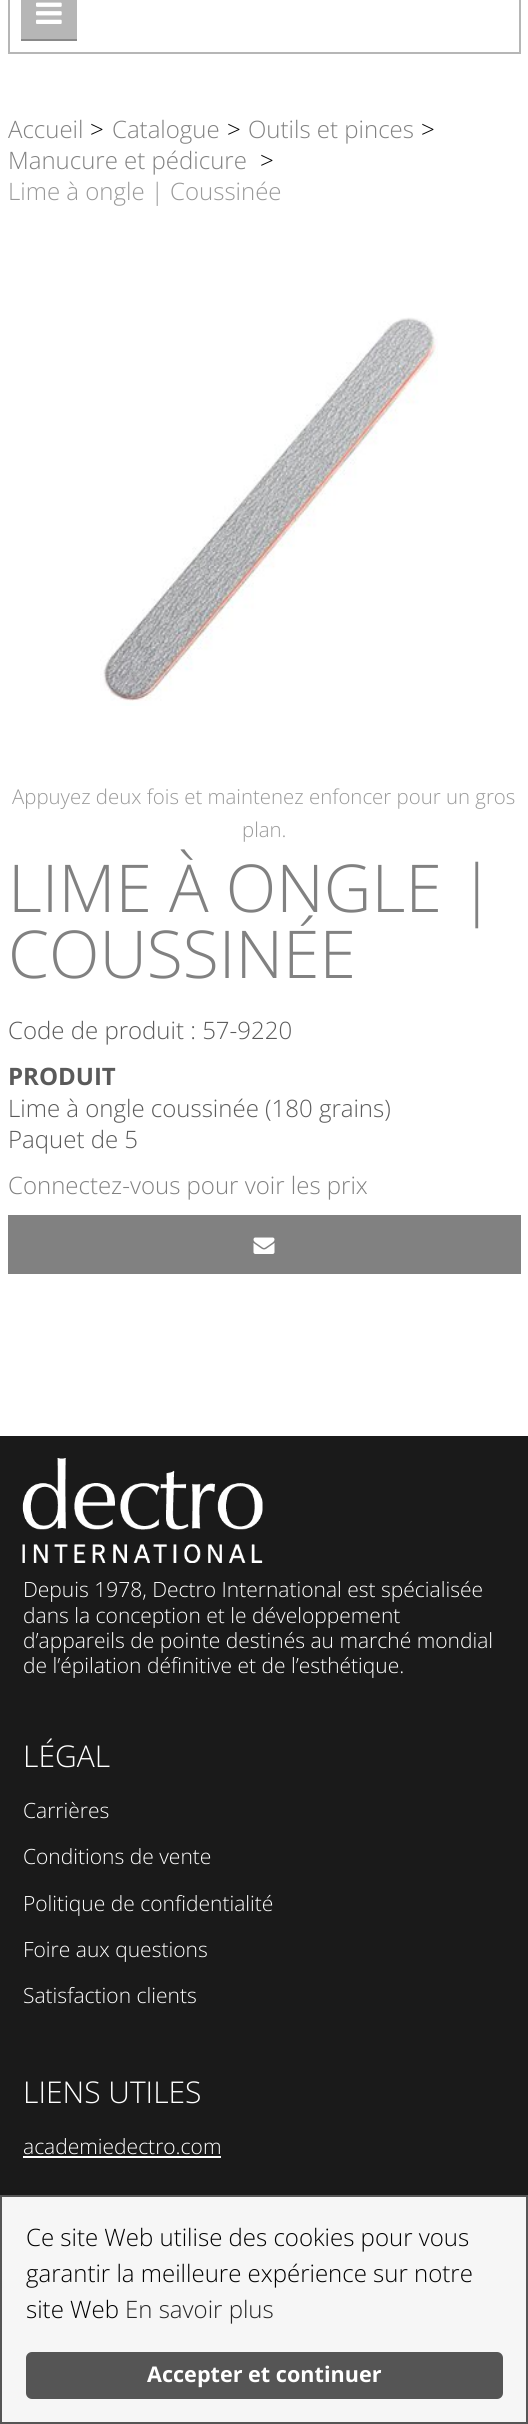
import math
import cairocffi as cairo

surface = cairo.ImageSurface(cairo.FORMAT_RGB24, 528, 2424)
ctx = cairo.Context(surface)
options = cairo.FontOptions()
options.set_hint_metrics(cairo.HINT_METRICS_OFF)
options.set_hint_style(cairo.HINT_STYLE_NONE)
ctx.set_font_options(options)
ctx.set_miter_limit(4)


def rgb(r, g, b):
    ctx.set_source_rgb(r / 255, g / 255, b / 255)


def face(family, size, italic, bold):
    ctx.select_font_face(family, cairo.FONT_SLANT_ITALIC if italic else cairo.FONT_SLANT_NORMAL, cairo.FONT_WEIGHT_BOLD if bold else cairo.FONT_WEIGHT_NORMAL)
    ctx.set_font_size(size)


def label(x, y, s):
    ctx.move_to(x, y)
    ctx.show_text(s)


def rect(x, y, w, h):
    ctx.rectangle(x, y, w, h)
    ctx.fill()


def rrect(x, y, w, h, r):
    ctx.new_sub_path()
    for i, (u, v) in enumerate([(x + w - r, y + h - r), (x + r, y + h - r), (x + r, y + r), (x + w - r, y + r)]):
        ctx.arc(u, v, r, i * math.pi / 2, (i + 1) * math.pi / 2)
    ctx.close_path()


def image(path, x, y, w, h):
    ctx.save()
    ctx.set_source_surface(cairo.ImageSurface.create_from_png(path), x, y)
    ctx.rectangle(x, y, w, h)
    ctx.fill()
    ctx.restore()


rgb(255, 255, 255)
ctx.paint()
ctx.rectangle(9, -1, 511, 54)
rgb(182, 182, 182)
ctx.stroke()
rect(21, 0, 56, 39)
rgb(137, 137, 137)
rect(21, 39, 56, 2)
image('image0.png', 36, 2, 26, 22)
face('Open Sans Light', 24, 0, 0)
rgb(129, 129, 129)
label(8, 138, 'Accueil')
rgb(0, 0, 0)
label(90, 138, '>')
rgb(129, 129, 129)
label(112, 138, 'Catalogue')
rgb(0, 0, 0)
label(227, 138, '>')
rgb(129, 129, 129)
label(248, 138, 'Outils et pinces')
rgb(0, 0, 0)
label(421, 138, '>')
rgb(129, 129, 129)
label(8, 169, 'Manucure et pédicure')
rgb(0, 0, 0)
label(260, 169, '>')
rgb(153, 153, 153)
label(8, 200, 'Lime à ongle | Coussinée')
image('image1.png', 100, 317, 338, 389)
face('Open Sans Light', 20.4, 0, 0)
label(12, 804, 'Appuyez deux fois et maintenez enfoncer pour un gros')
label(242, 837, 'plan.')
face('Open Sans Light', 66, 0, 0)
rgb(129, 129, 129)
label(8, 912, 'LIME À ONGLE |')
label(8, 978, 'COUSSINÉE')
face('Open Sans Light', 24, 0, 0)
rgb(90, 90, 90)
label(8, 1039, 'Code de produit : 57-9220')
face('Open Sans', 24, 0, 1)
label(8, 1085, 'PRODUIT')
face('Open Sans Light', 24, 0, 0)
label(8, 1117, 'Lime à ongle coussinée (180 grains)')
label(8, 1148, 'Paquet de 5')
rgb(129, 129, 129)
label(8, 1194, 'Connectez-vous pour voir les prix')
rect(8, 1215, 513, 59)
image('image2.png', 253, 1237, 22, 17)
rgb(26, 26, 26)
rect(0, 1436, 528, 759)
image('image3.png', 22, 1458, 241, 105)
face('Open Sans Light', 21, 0, 0)
rgb(255, 255, 255)
label(23, 1597, 'Depuis 1978, Dectro International est spécialisée')
label(23, 1623, 'dans la conception et le développement')
label(23, 1648, 'd’appareils de pointe destinés au marché mondial')
label(23, 1673, 'de l’épilation définitive et de l’esthétique.')
face('Open Sans Light', 30, 0, 0)
label(23, 1767, 'LÉGAL')
face('Open Sans Light', 21, 0, 0)
label(23, 1818, 'Carrières')
label(23, 1864, 'Conditions de vente')
label(23, 1911, 'Politique de confidentialité')
label(23, 1957, 'Foire aux questions')
label(23, 2003, 'Satisfaction clients')
face('Open Sans Light', 30, 0, 0)
label(23, 2103, 'LIENS UTILES')
face('Open Sans Light', 21, 0, 0)
label(23, 2154, 'academiedectro.com')
rect(23, 2156, 198, 2)
rgb(246, 246, 246)
ctx.rectangle(1, 2196, 526, 227)
ctx.fill_preserve()
rgb(85, 85, 85)
ctx.stroke()
face('Open Sans Light', 24, 0, 0)
rgb(0, 0, 0)
label(26, 2246, 'Ce site Web utilise des cookies pour vous')
label(26, 2282, 'garantir la meilleure expérience sur notre')
label(26, 2318, 'site Web')
rgb(37, 37, 37)
label(125, 2318, 'En savoir plus')
rgb(85, 85, 85)
rrect(26, 2352, 477, 47, 6)
ctx.fill()
face('Open Sans', 21.6, 0, 1)
rgb(255, 255, 255)
label(147, 2382, 'Accepter et continuer')
surface.write_to_png('render.png')
